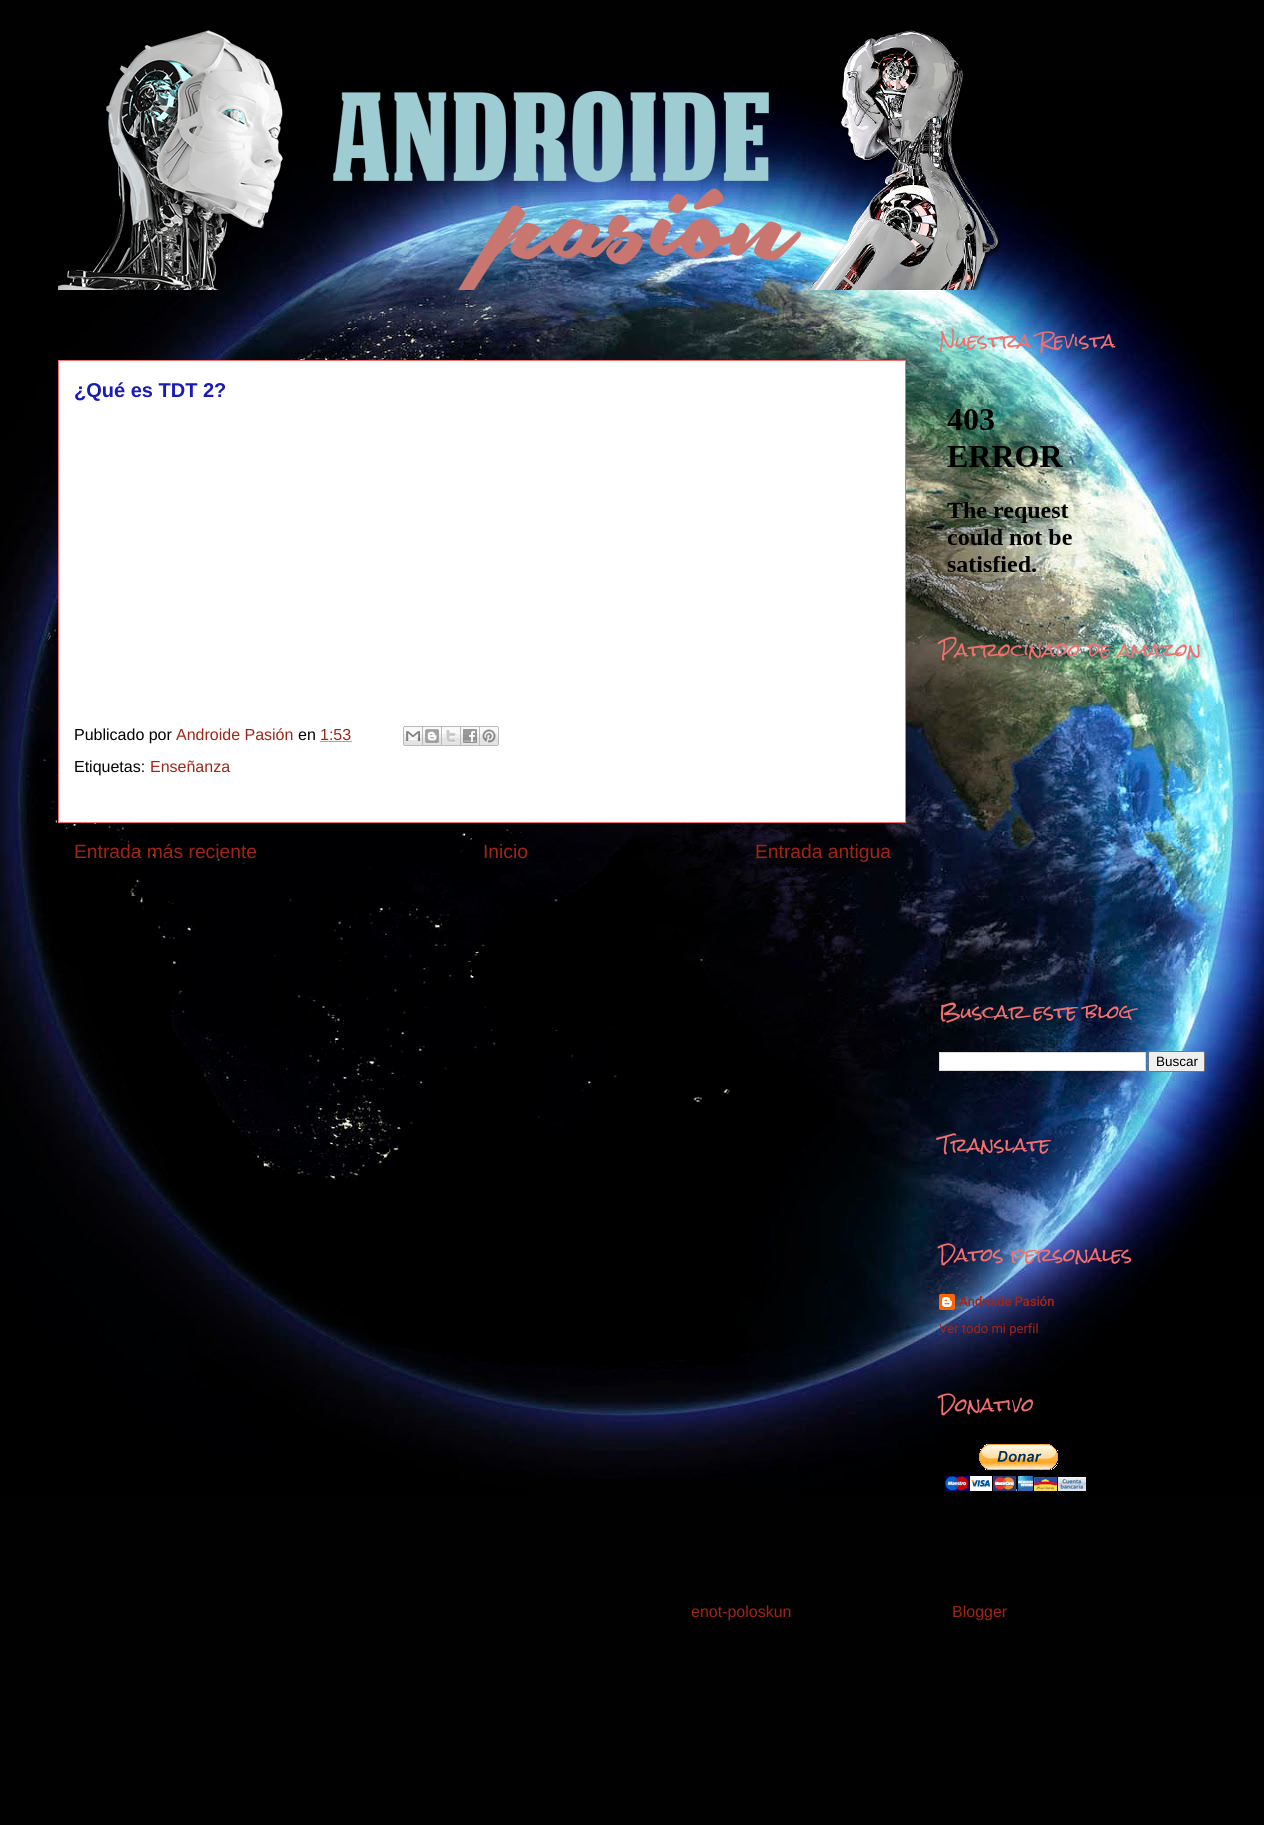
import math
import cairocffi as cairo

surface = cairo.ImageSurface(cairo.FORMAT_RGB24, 1264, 1825)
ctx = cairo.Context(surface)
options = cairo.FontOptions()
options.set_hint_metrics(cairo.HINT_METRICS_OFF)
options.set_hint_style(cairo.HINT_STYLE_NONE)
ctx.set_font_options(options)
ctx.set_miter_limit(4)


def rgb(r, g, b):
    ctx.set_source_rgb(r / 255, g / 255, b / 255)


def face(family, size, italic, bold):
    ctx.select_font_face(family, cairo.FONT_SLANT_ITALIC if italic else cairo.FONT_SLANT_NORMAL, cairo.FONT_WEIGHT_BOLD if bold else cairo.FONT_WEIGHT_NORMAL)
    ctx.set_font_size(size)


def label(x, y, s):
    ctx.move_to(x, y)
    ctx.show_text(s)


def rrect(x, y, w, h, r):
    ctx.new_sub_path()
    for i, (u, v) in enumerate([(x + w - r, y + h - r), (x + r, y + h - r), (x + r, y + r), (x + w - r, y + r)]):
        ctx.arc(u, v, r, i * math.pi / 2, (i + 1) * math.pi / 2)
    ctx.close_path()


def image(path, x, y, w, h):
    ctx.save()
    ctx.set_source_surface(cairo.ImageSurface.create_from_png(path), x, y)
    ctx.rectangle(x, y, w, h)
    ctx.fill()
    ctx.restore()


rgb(1, 1, 1)
ctx.paint()
image('image0.png', 0, 80, 1264, 1415)
image('image1.png', 58, 30, 944, 260)
rgb(255, 255, 255)
ctx.rectangle(58.5, 360.5, 847, 462)
ctx.fill_preserve()
rgb(242, 111, 111)
ctx.set_line_width(1)
ctx.stroke()
face('Liberation Sans', 20, 0, 1)
rgb(26, 26, 186)
label(74, 397, '¿Qué es TDT 2?')
face('Liberation Sans', 16, 0, 0)
rgb(0, 0, 0)
label(74, 740, 'Publicado por')
rgb(161, 37, 22)
label(176, 740, 'Androide Pasión')
rgb(0, 0, 0)
label(298, 740, 'en')
rgb(161, 37, 22)
label(320, 740, '1:53')
ctx.new_path()
ctx.move_to(320.5, 741.5)
ctx.line_to(351.5, 741.5)
ctx.set_dash([1, 1])
ctx.stroke()
image('image2.png', 403, 726, 20, 20)
image('image3.png', 423, 726, 19, 20)
image('image4.png', 442, 726, 19, 20)
image('image5.png', 461, 726, 19, 20)
image('image6.png', 480, 726, 19, 20)
rgb(0, 0, 0)
label(74, 772, 'Etiquetas:')
rgb(161, 37, 22)
label(150, 772, 'Enseñanza')
face('Liberation Sans', 19.25, 0, 0)
label(74, 858, 'Entrada más reciente')
label(483, 858, 'Inicio')
label(755, 858, 'Entrada antigua')
face('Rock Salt', 18, 0, 0)
rgb(242, 111, 111)
label(939, 348, 'Nuestra Revista')
image('image7.png', 947, 409, 125, 163)
label(939, 657, 'Patrocinado de amazon')
label(939, 1019, 'Buscar este blog')
rgb(255, 255, 255)
ctx.rectangle(939.5, 1052.5, 206, 18)
ctx.fill_preserve()
rgb(221, 221, 221)
ctx.set_dash([])
ctx.stroke()
rgb(239, 239, 239)
rrect(1148.5, 1051.5, 56, 20, 1.5)
ctx.fill_preserve()
rgb(118, 118, 118)
ctx.stroke()
face('Liberation Sans', 13.5, 0, 0)
rgb(0, 0, 0)
label(1156, 1066, 'Buscar')
face('Rock Salt', 18, 0, 0)
rgb(242, 111, 111)
label(939, 1152, 'Translate')
label(939, 1262, 'Datos personales')
image('image8.png', 939, 1294, 16, 16)
face('Roboto', 13, 0, 1)
rgb(161, 37, 22)
label(959, 1306, 'Androide Pasión')
face('Roboto', 13, 0, 0)
label(939, 1333, 'Ver todo mi perfil')
face('Rock Salt', 18, 0, 0)
rgb(242, 111, 111)
label(939, 1412, 'Donativo')
image('image9.png', 945, 1444, 141, 47)
face('Liberation Sans', 16, 0, 0)
rgb(161, 37, 22)
label(691, 1617, 'enot-poloskun')
label(952, 1617, 'Blogger')
surface.write_to_png('render.png')
